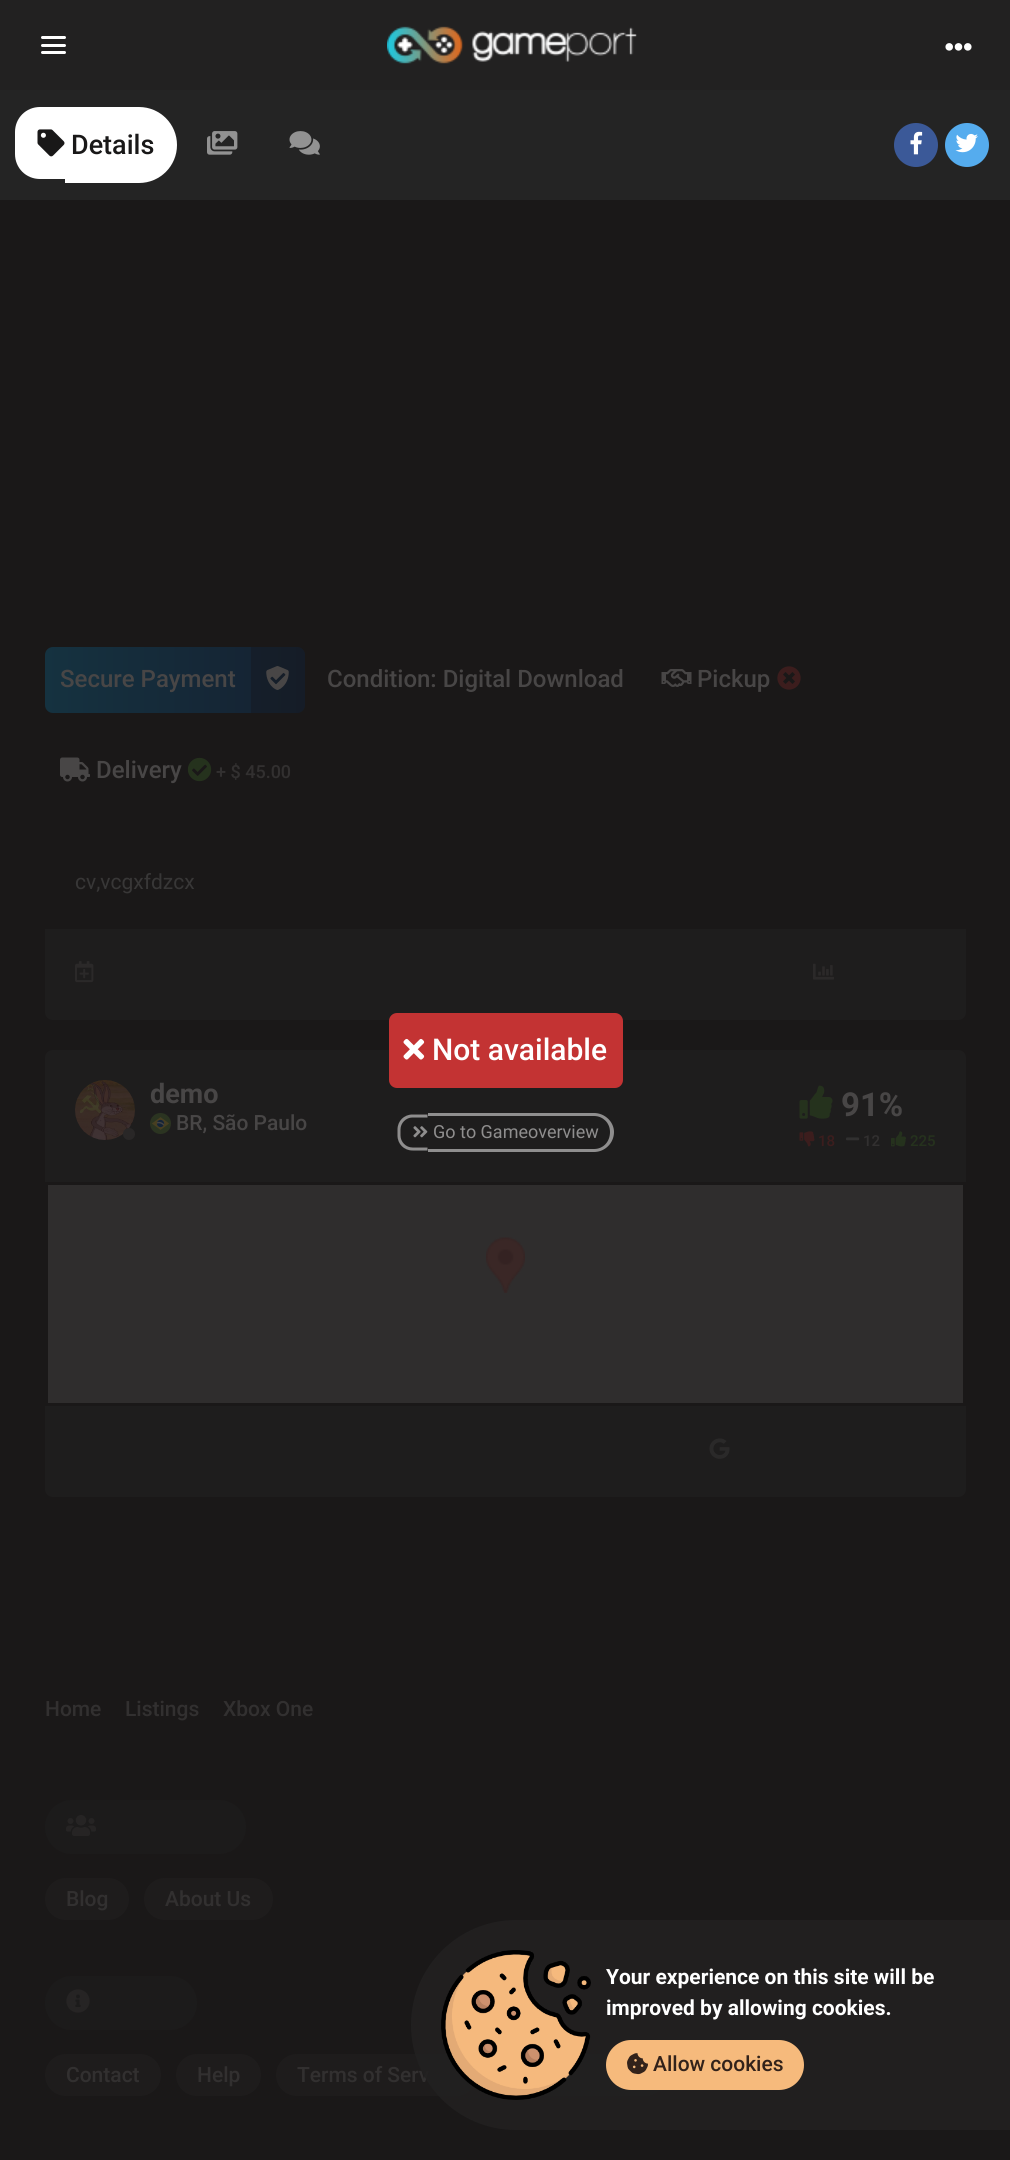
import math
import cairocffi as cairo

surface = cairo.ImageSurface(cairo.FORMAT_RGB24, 1010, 2160)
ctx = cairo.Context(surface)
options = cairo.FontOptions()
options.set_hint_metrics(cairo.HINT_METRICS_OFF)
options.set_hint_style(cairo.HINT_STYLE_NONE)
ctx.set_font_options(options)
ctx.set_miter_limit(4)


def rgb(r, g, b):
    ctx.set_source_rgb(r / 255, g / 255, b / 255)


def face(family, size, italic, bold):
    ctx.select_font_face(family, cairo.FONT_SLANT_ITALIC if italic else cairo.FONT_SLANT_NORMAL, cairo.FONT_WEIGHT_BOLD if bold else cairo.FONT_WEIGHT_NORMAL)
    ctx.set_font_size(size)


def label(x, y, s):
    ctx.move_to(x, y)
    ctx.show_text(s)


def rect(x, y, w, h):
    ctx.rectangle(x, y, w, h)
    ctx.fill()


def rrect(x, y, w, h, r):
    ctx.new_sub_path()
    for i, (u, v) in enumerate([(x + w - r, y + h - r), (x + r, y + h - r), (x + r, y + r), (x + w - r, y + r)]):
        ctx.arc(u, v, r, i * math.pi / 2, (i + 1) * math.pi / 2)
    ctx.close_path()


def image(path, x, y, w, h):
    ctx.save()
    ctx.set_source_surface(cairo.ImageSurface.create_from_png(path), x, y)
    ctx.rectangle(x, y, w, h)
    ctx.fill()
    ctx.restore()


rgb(26, 24, 24)
ctx.paint()
rgb(34, 33, 33)
rect(0, 0, 1010, 90)
rgb(255, 255, 255)
rrect(41, 36, 25, 3, 1.5)
ctx.fill()
rrect(41, 44, 25, 3, 1.5)
ctx.fill()
rrect(41, 51, 25, 3, 1.5)
ctx.fill()
image('image0.png', 387, 26, 250, 38)
image('image1.png', 945, 43, 27, 8)
rgb(36, 36, 36)
rect(0, 90, 1010, 110)
rgb(255, 255, 255)
ctx.new_path()
ctx.move_to(40, 107)
ctx.line_to(65, 107)
ctx.line_to(65, 179)
ctx.line_to(40, 179)
ctx.curve_to(26, 179, 15, 168, 15, 154)
ctx.line_to(15, 132)
ctx.curve_to(15, 118, 26, 107, 40, 107)
ctx.close_path()
ctx.fill()
ctx.new_path()
ctx.move_to(65, 107)
ctx.line_to(139, 107)
ctx.curve_to(160, 107, 177, 124, 177, 145)
ctx.curve_to(177, 166, 160, 183, 139, 183)
ctx.line_to(65, 183)
ctx.close_path()
ctx.fill()
image('image2.png', 37, 129, 28, 28)
face('Roboto Medium', 27, 0, 0)
rgb(25, 24, 24)
label(71, 154, 'Details')
image('image3.png', 207, 131, 31, 24)
image('image4.png', 289, 131, 31, 24)
rgb(59, 89, 152)
ctx.arc(916, 145, 22, 0, 2 * math.pi)
ctx.fill()
image('image5.png', 910, 131, 13, 24)
rgb(85, 172, 238)
ctx.arc(967, 145, 22, 0, 2 * math.pi)
ctx.fill()
image('image6.png', 955, 133, 23, 20)
gradient = cairo.LinearGradient(45, 680, 305, 680)
gradient.add_color_stop_rgba(0, 0.082, 0.196, 0.251, 1)
gradient.add_color_stop_rgba(1, 0.082, 0.129, 0.192, 1)
ctx.set_source(gradient)
rrect(45, 647, 260, 66, 8)
ctx.fill()
face('Roboto Medium', 24, 0, 0)
rgb(72, 70, 70)
label(60, 687, 'Secure Payment')
ctx.set_source_rgba(0.082, 0.075, 0.075, 0.3)
ctx.new_path()
ctx.move_to(251, 647)
ctx.line_to(297, 647)
ctx.curve_to(301.5, 647, 305, 650.5, 305, 655)
ctx.line_to(305, 705)
ctx.curve_to(305, 709.5, 301.5, 713, 297, 713)
ctx.line_to(251, 713)
ctx.close_path()
ctx.fill()
image('image7.png', 266, 666, 23, 24)
rgb(72, 70, 70)
label(327, 687, 'Condition: Digital Download')
image('image8.png', 661, 669, 31, 18)
label(697, 687, 'Pickup')
image('image9.png', 777, 666, 24, 24)
image('image10.png', 60, 757, 30, 25)
label(96, 778, 'Delivery')
image('image11.png', 187, 757, 25, 25)
face('Roboto Medium', 18, 0, 0)
rgb(50, 48, 48)
label(216, 778, '+ $ 45.00')
face('Roboto', 21, 0, 0)
rgb(56, 55, 55)
label(75, 889, 'cv,vcgxfdzcx')
rgb(30, 29, 29)
ctx.new_path()
ctx.move_to(45, 929)
ctx.line_to(966, 929)
ctx.line_to(966, 1012)
ctx.curve_to(966, 1016.5, 962.5, 1020, 958, 1020)
ctx.line_to(53, 1020)
ctx.curve_to(48.5, 1020, 45, 1016.5, 45, 1012)
ctx.close_path()
ctx.fill()
image('image12.png', 75, 961, 19, 22)
image('image13.png', 813, 963, 21, 17)
ctx.new_path()
ctx.move_to(53, 1050)
ctx.line_to(958, 1050)
ctx.curve_to(962.5, 1050, 966, 1053.5, 966, 1058)
ctx.line_to(966, 1182)
ctx.line_to(45, 1182)
ctx.line_to(45, 1058)
ctx.curve_to(45, 1053.5, 48.5, 1050, 53, 1050)
ctx.close_path()
ctx.fill()
image('image14.png', 75, 1080, 60, 60)
rgb(41, 39, 39)
ctx.arc(129, 1134, 6, 0, 2 * math.pi)
ctx.fill()
face('Roboto', 27, 0, 1)
rgb(72, 70, 70)
label(150, 1103, 'demo')
image('image15.png', 150, 1113, 21, 21)
face('Roboto Medium', 21, 0, 0)
label(176, 1130, 'BR, São Paulo')
image('image16.png', 799, 1085, 34, 34)
face('Roboto', 33, 0, 1)
label(841, 1116, '91%')
image('image17.png', 799, 1131, 16, 16)
face('Roboto Medium', 15, 0, 0)
rgb(60, 29, 29)
label(818, 1146, '18')
image('image18.png', 846, 1137, 14, 4)
rgb(50, 48, 48)
label(863, 1146, '12')
image('image19.png', 891, 1131, 15, 16)
rgb(37, 50, 29)
label(910, 1146, '225')
rgb(47, 45, 45)
rect(48, 1185, 915, 218)
image('image20.png', 486, 1237, 39, 56)
rgb(30, 29, 29)
ctx.new_path()
ctx.move_to(45, 1406)
ctx.line_to(966, 1406)
ctx.line_to(966, 1489)
ctx.curve_to(966, 1493.5, 962.5, 1497, 958, 1497)
ctx.line_to(53, 1497)
ctx.curve_to(48.5, 1497, 45, 1493.5, 45, 1489)
ctx.close_path()
ctx.fill()
image('image21.png', 709, 1438, 21, 21)
rgb(195, 51, 51)
rrect(389, 1013, 234, 75, 8)
ctx.fill()
image('image22.png', 403, 1038, 22, 22)
face('Roboto Medium', 30, 0, 0)
rgb(255, 255, 255)
label(432, 1060, 'Not available')
rgb(143, 142, 142)
ctx.set_fill_rule(cairo.FILL_RULE_EVEN_ODD)
ctx.new_path()
ctx.move_to(412.5, 1114.5)
ctx.line_to(427.5, 1114.5)
ctx.line_to(427.5, 1150.5)
ctx.line_to(412.5, 1150.5)
ctx.curve_to(404, 1150.5, 397.5, 1144, 397.5, 1135.5)
ctx.line_to(397.5, 1129.5)
ctx.curve_to(397.5, 1121, 404, 1114.5, 412.5, 1114.5)
ctx.close_path()
ctx.move_to(412.5, 1117.5)
ctx.line_to(427.5, 1117.5)
ctx.line_to(427.5, 1147.5)
ctx.line_to(412.5, 1147.5)
ctx.curve_to(406, 1147.5, 400.5, 1142, 400.5, 1135.5)
ctx.line_to(400.5, 1129.5)
ctx.curve_to(400.5, 1123, 406, 1117.5, 412.5, 1117.5)
ctx.close_path()
ctx.fill()
ctx.new_path()
ctx.move_to(428, 1113)
ctx.line_to(594, 1113)
ctx.curve_to(605, 1113, 614, 1122, 614, 1132)
ctx.curve_to(614, 1143, 605, 1152, 594, 1152)
ctx.line_to(428, 1152)
ctx.close_path()
ctx.move_to(428, 1116)
ctx.line_to(594, 1116)
ctx.curve_to(603, 1116, 610, 1123, 610, 1132)
ctx.curve_to(610, 1142, 603, 1149, 594, 1149)
ctx.line_to(428, 1149)
ctx.close_path()
ctx.fill()
image('image23.png', 413, 1126, 15, 12)
face('Roboto', 18, 0, 0)
label(433, 1138, 'Go to Gameoverview')
face('Roboto Medium', 21, 0, 0)
rgb(50, 48, 48)
label(45, 1716, 'Home')
label(125, 1716, 'Listings')
label(223, 1716, 'Xbox One')
rgb(28, 27, 27)
rrect(45, 1800, 201, 54, 27)
ctx.fill()
image('image24.png', 66, 1815, 30, 21)
rgb(30, 28, 28)
rrect(45, 1878, 84, 42, 21)
ctx.fill()
rgb(50, 48, 48)
label(66, 1906, 'Blog')
rgb(30, 28, 28)
rrect(144, 1878, 129, 42, 21)
ctx.fill()
rgb(50, 48, 48)
label(165, 1906, 'About Us')
rgb(28, 27, 27)
rrect(45, 1976, 152, 54, 27)
ctx.fill()
image('image25.png', 66, 1989, 24, 24)
rgb(30, 28, 28)
rrect(45, 2054, 116, 42, 21)
ctx.fill()
rgb(50, 48, 48)
label(66, 2082, 'Contact')
rgb(30, 28, 28)
rrect(176, 2054, 85, 42, 21)
ctx.fill()
rgb(50, 48, 48)
label(197, 2082, 'Help')
rgb(30, 28, 28)
rrect(276, 2054, 201, 42, 21)
ctx.fill()
rgb(50, 48, 48)
label(297, 2082, 'Terms of Serv')
rgb(30, 28, 28)
rrect(492, 2054, 174, 42, 21)
ctx.fill()
ctx.set_source_rgba(0.133, 0.129, 0.129, 0.9)
ctx.new_path()
ctx.move_to(516, 1920)
ctx.line_to(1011, 1920)
ctx.line_to(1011, 2130)
ctx.line_to(516, 2130)
ctx.curve_to(458, 2130, 411, 2083, 411, 2025)
ctx.curve_to(411, 1967, 458, 1920, 516, 1920)
ctx.close_path()
ctx.fill()
image('image26.png', 441, 1950, 150, 150)
face('Roboto', 21, 0, 1)
rgb(255, 255, 255)
label(606, 1984, 'Your experience on this site will be')
label(606, 2015, 'improved by allowing cookies.')
rgb(246, 186, 124)
rrect(606, 2040, 198, 50, 25)
ctx.fill()
image('image27.png', 627, 2053, 21, 22)
face('Roboto Medium', 21, 0, 0)
rgb(50, 34, 26)
label(653, 2071, 'Allow cookies')
surface.write_to_png('render.png')
